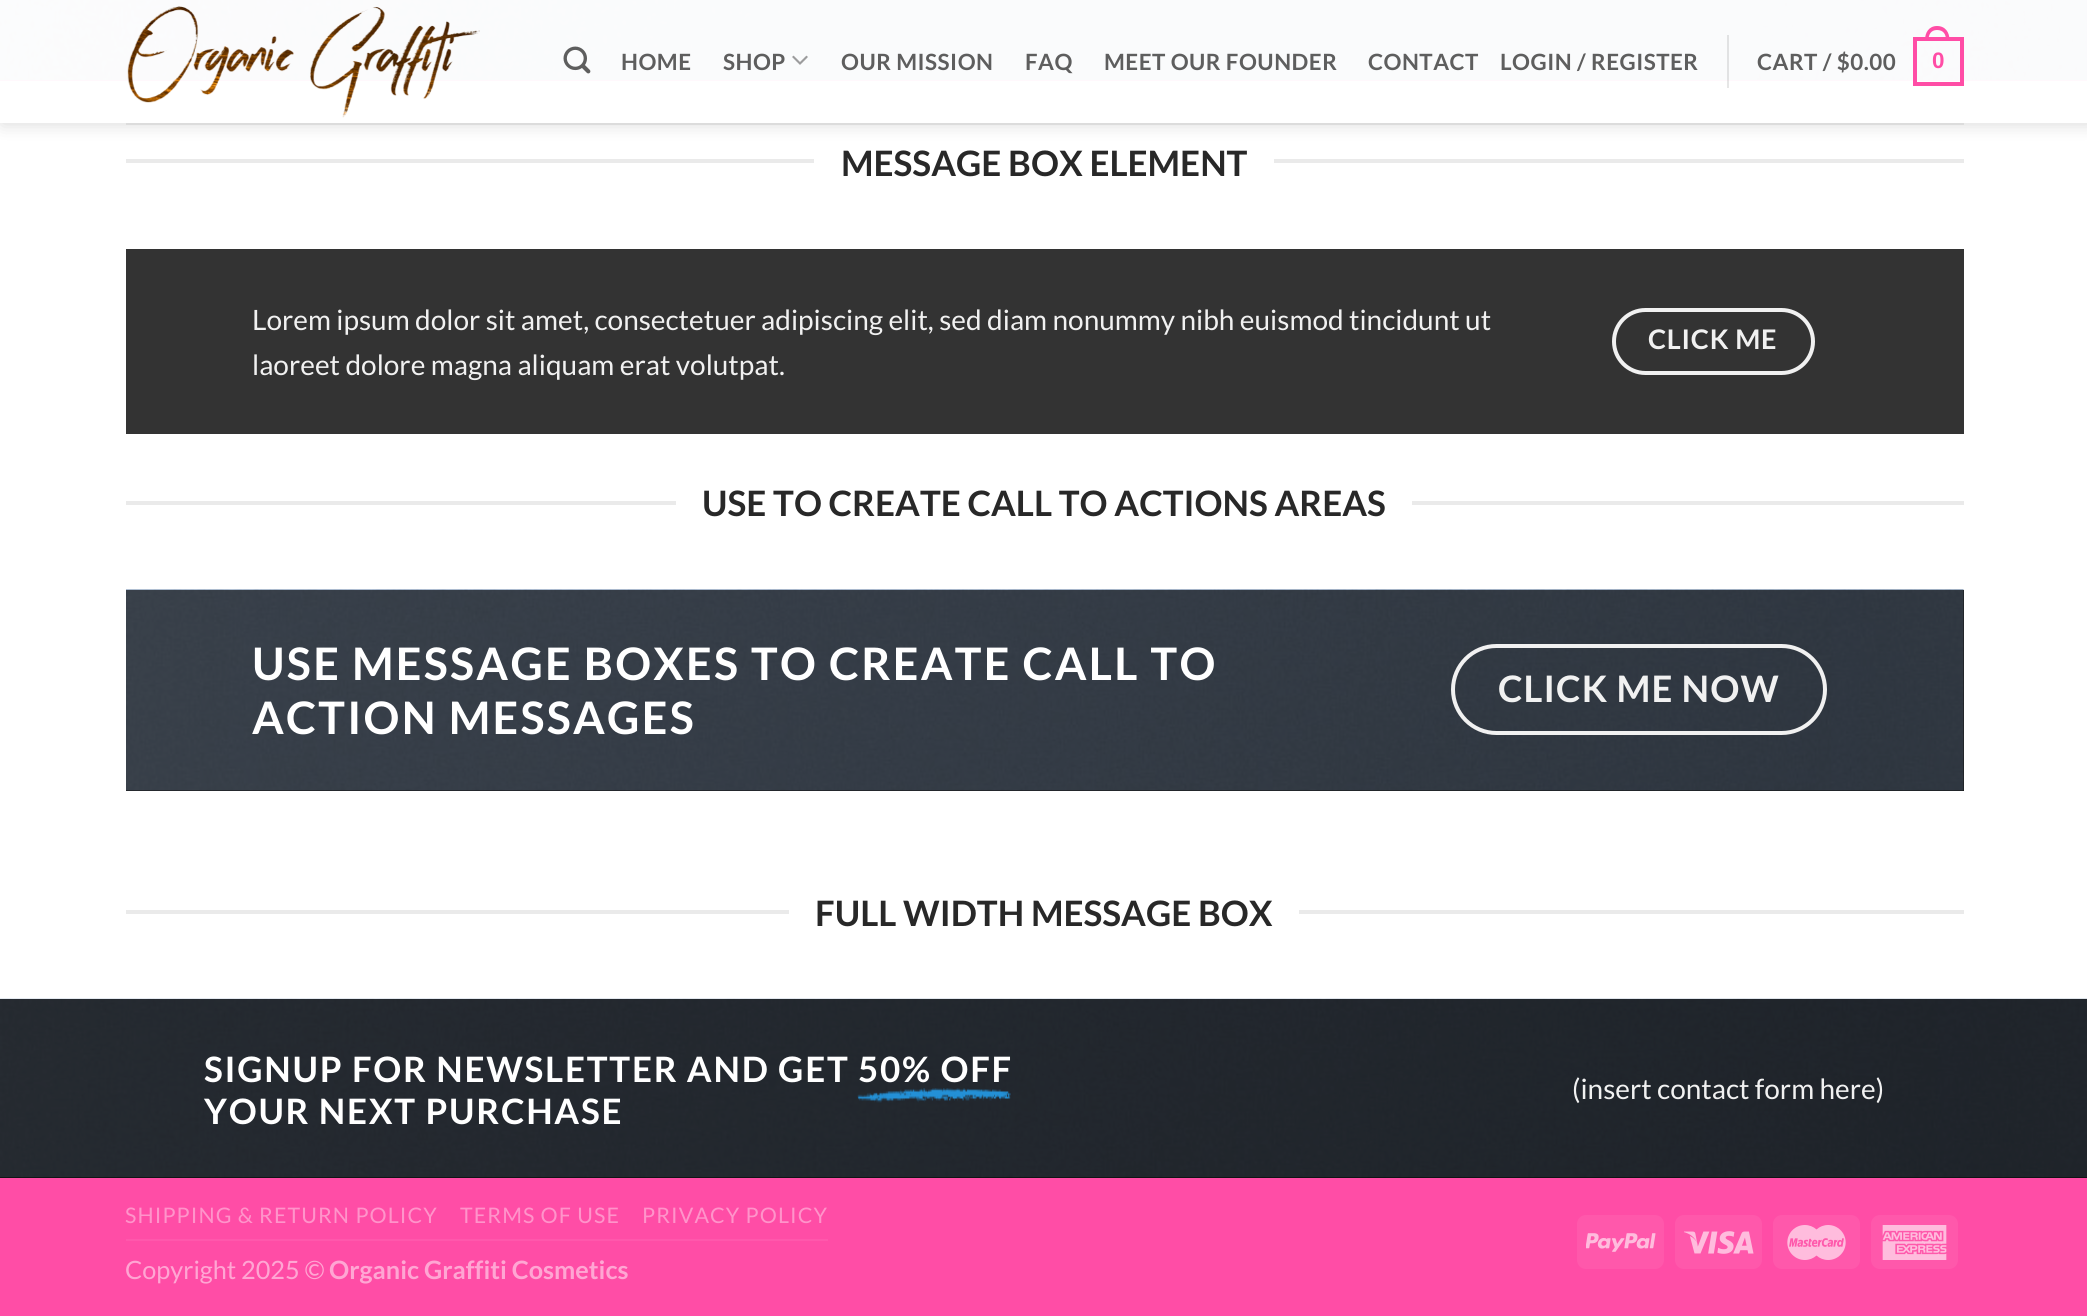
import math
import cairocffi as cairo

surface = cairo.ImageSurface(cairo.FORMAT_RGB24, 2087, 1316)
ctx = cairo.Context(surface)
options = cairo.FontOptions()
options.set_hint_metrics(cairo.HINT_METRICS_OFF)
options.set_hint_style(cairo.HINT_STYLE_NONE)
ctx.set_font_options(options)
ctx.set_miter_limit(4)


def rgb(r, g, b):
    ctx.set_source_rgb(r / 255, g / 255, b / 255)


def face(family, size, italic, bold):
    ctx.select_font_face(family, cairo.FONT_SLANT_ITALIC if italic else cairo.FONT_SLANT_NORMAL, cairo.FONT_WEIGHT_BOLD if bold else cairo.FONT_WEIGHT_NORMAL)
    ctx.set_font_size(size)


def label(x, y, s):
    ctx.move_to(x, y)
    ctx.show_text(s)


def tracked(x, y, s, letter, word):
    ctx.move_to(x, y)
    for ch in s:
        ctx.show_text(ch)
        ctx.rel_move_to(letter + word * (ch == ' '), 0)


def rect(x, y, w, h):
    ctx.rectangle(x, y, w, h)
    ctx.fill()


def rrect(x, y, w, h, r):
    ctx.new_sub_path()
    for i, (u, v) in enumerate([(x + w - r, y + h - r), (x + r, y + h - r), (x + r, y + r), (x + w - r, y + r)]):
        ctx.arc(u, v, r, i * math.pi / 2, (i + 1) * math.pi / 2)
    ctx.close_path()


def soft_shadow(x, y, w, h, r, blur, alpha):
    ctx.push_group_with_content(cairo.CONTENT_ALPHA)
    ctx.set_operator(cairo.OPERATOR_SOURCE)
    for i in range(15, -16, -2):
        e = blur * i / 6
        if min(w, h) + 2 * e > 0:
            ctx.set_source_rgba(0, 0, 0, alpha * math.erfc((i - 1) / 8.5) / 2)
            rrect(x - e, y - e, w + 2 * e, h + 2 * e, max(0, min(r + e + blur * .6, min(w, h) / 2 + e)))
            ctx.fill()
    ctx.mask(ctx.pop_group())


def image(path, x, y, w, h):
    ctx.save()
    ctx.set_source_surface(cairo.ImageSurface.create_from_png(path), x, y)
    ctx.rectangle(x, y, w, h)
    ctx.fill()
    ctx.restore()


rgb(255, 255, 255)
ctx.paint()
rgb(255, 186, 220)
rect(0, 0, 2087, 81)
image('image3.png', 0, 0, 2087, 80)
ctx.save()
ctx.set_fill_rule(cairo.FILL_RULE_EVEN_ODD)
ctx.new_path()
ctx.move_to(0, 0)
ctx.line_to(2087, 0)
ctx.line_to(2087, 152)
ctx.line_to(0, 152)
ctx.close_path()
ctx.move_to(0, 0)
ctx.line_to(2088, 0)
ctx.line_to(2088, 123)
ctx.line_to(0, 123)
ctx.close_path()
ctx.clip()
rgb(0, 0, 0)
soft_shadow(2, 2, 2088, 122, 0, 9, 0.15)
ctx.restore()
ctx.set_source_rgba(1, 1, 1, 0.9)
rect(0, 0, 2087, 123)
image('image0.png', 127, 6, 353, 112)
image('image1.png', 563, 46, 28, 28)
face('Lato', 22.4, 0, 1)
rgb(94, 94, 94)
tracked(621, 70, 'HOME', 0.5, 0)
tracked(723, 70, 'SHOP', 0.5, 0)
image('image2.png', 792, 55, 16, 10)
tracked(841, 70, 'OUR MISSION', 0.5, 0)
tracked(1025, 70, 'FAQ', 0.5, 0)
tracked(1104, 70, 'MEET OUR FOUNDER', 0.5, 0)
tracked(1368, 70, 'CONTACT', 0.5, 0)
tracked(1500, 70, 'LOGIN / REGISTER', 0.5, 0)
ctx.set_source_rgba(0, 0, 0, 0.1)
rect(1727, 35, 2, 53)
rgb(94, 94, 94)
tracked(1757, 70, 'CART / $0.00', 0.5, 0)
ctx.rectangle(1915, 39, 47, 45)
rgb(255, 77, 166)
ctx.set_line_width(4)
ctx.stroke()
ctx.set_fill_rule(cairo.FILL_RULE_EVEN_ODD)
ctx.new_path()
ctx.move_to(1937, 26)
ctx.curve_to(1945.5, 26, 1949.5, 32.5, 1949.5, 40)
ctx.line_to(1925, 40)
ctx.curve_to(1925, 32.5, 1929, 26, 1937, 26)
ctx.close_path()
ctx.move_to(1937, 30)
ctx.curve_to(1943.5, 30, 1946, 34.5, 1946, 40)
ctx.line_to(1928.5, 40)
ctx.curve_to(1928.5, 34.5, 1931, 30, 1937, 30)
ctx.close_path()
ctx.fill()
face('Liberation Sans', 22.4, 0, 1)
tracked(1932, 68, '0', 0.5, 0)
rgb(220, 220, 220)
rect(126, 123, 1838, 2)
rgb(234, 234, 234)
rect(126, 159, 688, 4)
face('Lato', 35, 0, 1)
rgb(40, 40, 40)
label(841, 176, 'MESSAGE BOX ELEMENT')
rgb(234, 234, 234)
rect(1274, 159, 690, 4)
rgb(51, 51, 51)
rect(126, 249, 1838, 185)
face('Lato', 28, 0, 0)
rgb(241, 241, 241)
label(252, 330, 'Lorem ipsum dolor sit amet, consectetuer adipiscing elit, sed diam nonummy nibh euismod tincidunt ut')
label(252, 375, 'laoreet dolore magna aliquam erat volutpat.')
rrect(1614, 310, 199, 63, 31.5)
ctx.stroke()
face('Lato', 27, 0, 1)
tracked(1648, 349, 'CLICK ME', 0.75, 0)
rgb(234, 234, 234)
rect(126, 501, 550, 4)
face('Lato', 35, 0, 1)
rgb(40, 40, 40)
label(702, 516, 'USE TO CREATE CALL TO ACTIONS AREAS')
rgb(234, 234, 234)
rect(1412, 501, 552, 4)
rgb(19, 19, 19)
rect(126, 590, 1838, 201)
image('image4.png', 126, 589, 1838, 202)
face('Lato', 44.8, 0, 1)
rgb(255, 255, 255)
tracked(252, 680, 'USE MESSAGE BOXES TO CREATE CALL TO', 2.25, 0)
tracked(252, 734, 'ACTION MESSAGES', 2.25, 0)
rrect(1453, 646, 372, 87, 43.5)
rgb(241, 241, 241)
ctx.stroke()
face('Lato', 36.5, 0, 1)
tracked(1498, 702, 'CLICK ME NOW', 1.1, 0)
rgb(234, 234, 234)
rect(126, 910, 663, 4)
face('Lato', 35, 0, 1)
rgb(40, 40, 40)
label(815, 926, 'FULL WIDTH MESSAGE BOX')
rgb(234, 234, 234)
rect(1299, 910, 665, 4)
rgb(13, 13, 13)
rect(0, 1177, 2087, 1)
image('image5.png', 0, 998, 2087, 180)
rgb(255, 255, 255)
tracked(204, 1082, 'SIGNUP FOR NEWSLETTER AND GET 50% OFF', 1.75, 0)
image('image6.png', 857, 1088, 154, 15)
tracked(204, 1124, 'YOUR NEXT PURCHASE', 1.75, 0)
face('Lato', 28, 0, 0)
rgb(241, 241, 241)
label(1572, 1099, '(insert contact form here)')
rgb(255, 77, 166)
rect(0, 1178, 2087, 138)
rgb(255, 88, 172)
rect(126, 1239, 702, 2)
face('Lato', 21.4, 0, 0)
rgb(255, 148, 202)
tracked(125, 1223, 'SHIPPING & RETURN POLICY', 1.1, 0)
tracked(460, 1223, 'TERMS OF USE', 1.1, 0)
tracked(642, 1223, 'PRIVACY POLICY', 1.1, 0)
face('Lato', 25.25, 0, 0)
rgb(255, 166, 211)
label(125, 1279, 'Copyright 2025 ©')
face('Lato', 25.25, 0, 1)
label(329, 1279, 'Organic Graffiti Cosmetics')
rgb(255, 88, 171)
rrect(1577, 1215, 87, 54, 9)
ctx.fill()
image('image7.png', 1586, 1233, 70, 19)
rrect(1675, 1215, 87, 54, 9)
ctx.fill()
image('image8.png', 1684, 1231, 70, 23)
rrect(1773, 1215, 87, 54, 9)
ctx.fill()
image('image9.png', 1787, 1225, 59, 35)
rrect(1871, 1215, 87, 54, 9)
ctx.fill()
image('image10.png', 1882, 1225, 65, 35)
surface.write_to_png('render.png')
